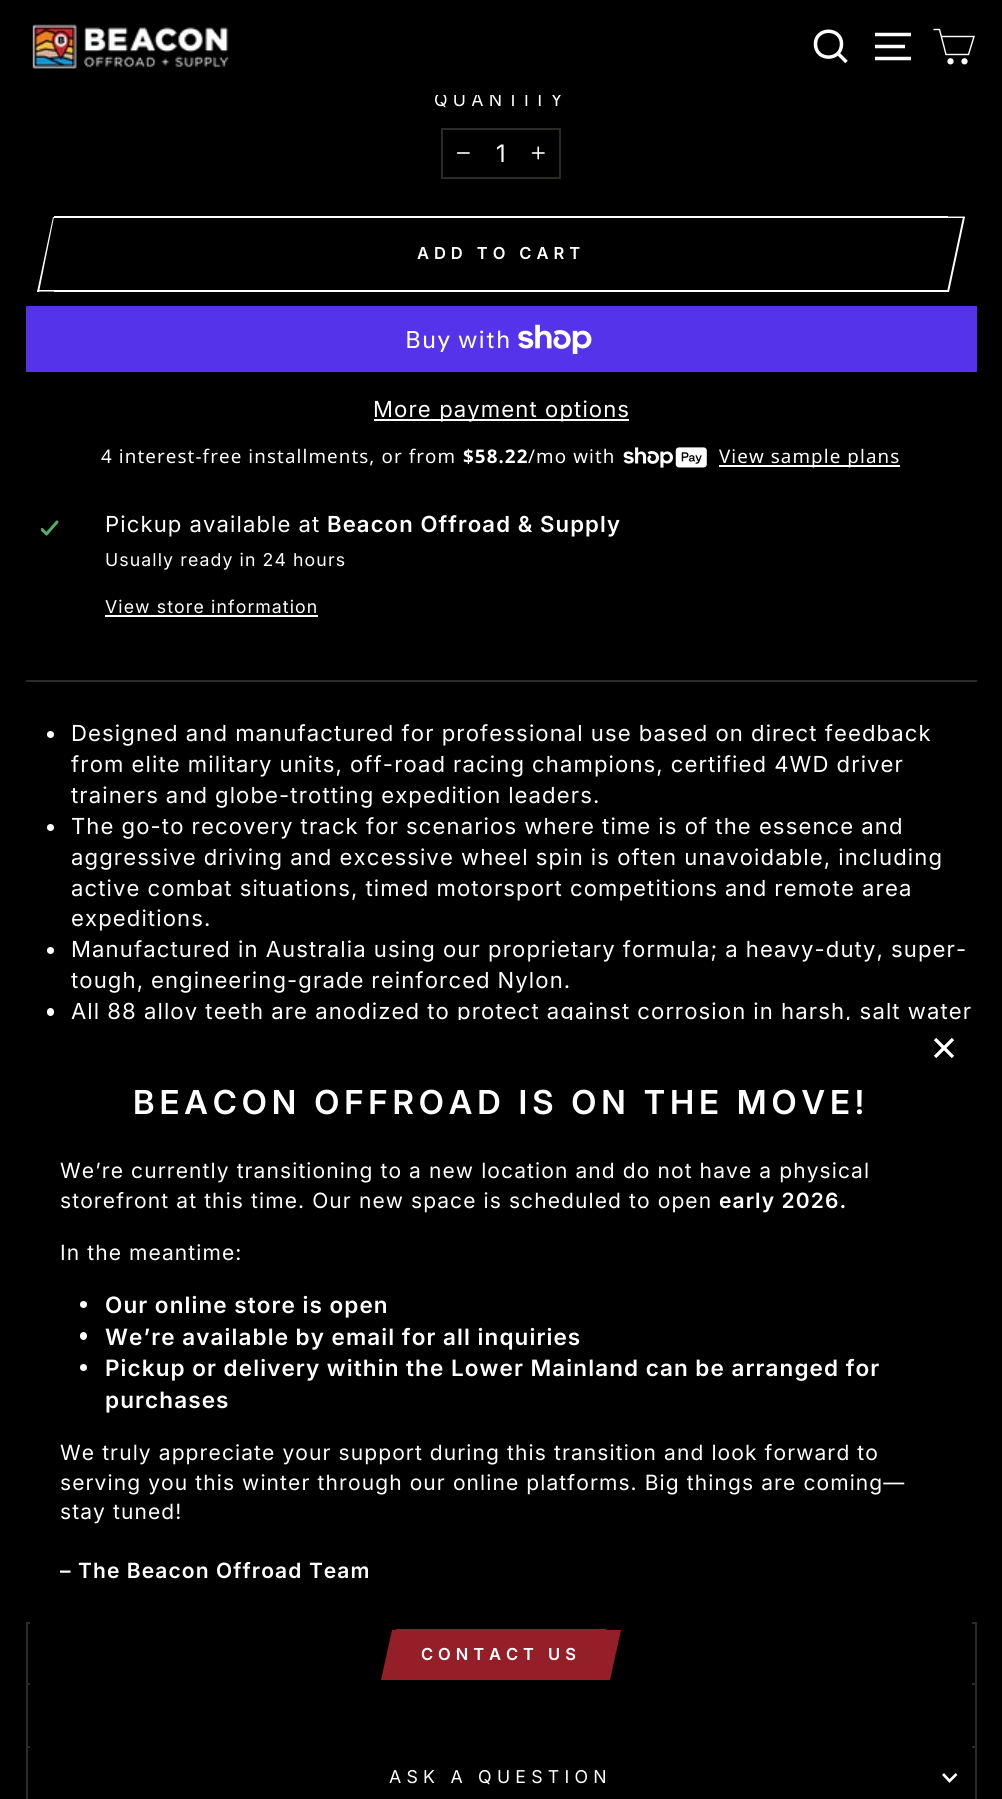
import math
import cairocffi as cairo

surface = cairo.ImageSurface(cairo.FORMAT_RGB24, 1002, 1799)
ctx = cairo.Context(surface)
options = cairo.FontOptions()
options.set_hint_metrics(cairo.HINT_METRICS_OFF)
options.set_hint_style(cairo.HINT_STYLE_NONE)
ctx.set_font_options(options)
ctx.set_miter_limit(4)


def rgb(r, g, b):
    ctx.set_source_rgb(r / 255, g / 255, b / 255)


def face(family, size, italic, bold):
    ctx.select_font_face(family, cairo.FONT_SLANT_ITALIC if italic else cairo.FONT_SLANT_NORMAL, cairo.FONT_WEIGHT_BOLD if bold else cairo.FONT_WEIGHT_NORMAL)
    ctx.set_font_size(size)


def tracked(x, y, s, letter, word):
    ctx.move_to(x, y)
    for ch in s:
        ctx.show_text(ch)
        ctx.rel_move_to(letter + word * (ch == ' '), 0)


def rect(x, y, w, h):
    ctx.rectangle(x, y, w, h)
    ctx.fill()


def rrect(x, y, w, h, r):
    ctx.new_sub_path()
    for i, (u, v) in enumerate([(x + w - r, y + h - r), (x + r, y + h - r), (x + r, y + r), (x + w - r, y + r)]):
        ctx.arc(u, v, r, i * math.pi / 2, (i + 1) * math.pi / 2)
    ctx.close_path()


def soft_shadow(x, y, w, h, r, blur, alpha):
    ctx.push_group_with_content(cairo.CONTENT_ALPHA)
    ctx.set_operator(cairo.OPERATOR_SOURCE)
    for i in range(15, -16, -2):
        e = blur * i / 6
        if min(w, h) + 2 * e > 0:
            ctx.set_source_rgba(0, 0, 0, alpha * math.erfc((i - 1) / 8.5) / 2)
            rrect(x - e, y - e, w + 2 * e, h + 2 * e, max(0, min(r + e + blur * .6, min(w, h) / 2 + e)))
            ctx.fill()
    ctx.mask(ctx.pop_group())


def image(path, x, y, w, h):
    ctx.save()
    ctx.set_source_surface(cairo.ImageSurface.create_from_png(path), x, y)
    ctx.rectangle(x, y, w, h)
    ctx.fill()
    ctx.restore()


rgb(0, 0, 0)
ctx.paint()
soft_shadow(0, 0, 1002, 95, 0, 1, 0.2)
face('Inter', 17.7, 0, 0)
rgb(255, 255, 255)
tracked(434, 106, 'QUANTITY', 5.25, 0)
rgb(0, 0, 0)
rect(436, 93, 127, 2)
image('image0.png', 32, 24, 197, 45)
ctx.new_path()
ctx.move_to(841.5, 44)
ctx.curve_to(841.5, 61.5, 815.5, 61.5, 815.5, 44)
ctx.curve_to(815.5, 27, 841.5, 27, 841.5, 44)
ctx.close_path()
ctx.move_to(846.5, 62)
ctx.line_to(838, 53.5)
rgb(255, 255, 255)
ctx.set_line_width(3.5)
ctx.stroke()
ctx.new_path()
ctx.move_to(875, 34.5)
ctx.line_to(911, 34.5)
ctx.move_to(875, 46.5)
ctx.line_to(905, 46.5)
ctx.move_to(875, 58.5)
ctx.line_to(911, 58.5)
ctx.stroke()
ctx.new_path()
ctx.move_to(941.5, 36.5)
ctx.line_to(974, 36.5)
ctx.line_to(968.5, 54.5)
ctx.line_to(946, 54.5)
ctx.line_to(939.5, 29.5)
ctx.line_to(933.5, 29.5)
ctx.set_line_width(1.4)
ctx.stroke()
ctx.arc(950.5, 61.3, 1.4, 0, 2 * math.pi)
ctx.fill_preserve()
ctx.set_line_width(3.5)
ctx.stroke()
ctx.arc(964.5, 61.3, 1.4, 0, 2 * math.pi)
ctx.fill_preserve()
ctx.stroke()
ctx.rectangle(442, 129, 118, 49)
rgb(43, 42, 39)
ctx.set_line_width(2)
ctx.stroke()
image('image1.png', 456, 152, 14, 2)
face('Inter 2', 24, 0, 0)
rgb(255, 255, 255)
tracked(496, 162, '1', 1, 0)
image('image2.png', 531, 146, 14, 14)
rect(54, 216, 894, 2)
rect(54, 290, 894, 2)
ctx.new_path()
ctx.move_to(37.5, 290)
ctx.line_to(67.5, 290)
ctx.line_to(67, 291.5)
ctx.line_to(37, 291.5)
ctx.close_path()
ctx.fill()
ctx.new_path()
ctx.move_to(53, 217)
ctx.line_to(54, 217)
ctx.line_to(39, 292)
ctx.line_to(37, 292)
ctx.close_path()
ctx.fill()
face('Inter SemiBold', 16.5, 0, 0)
tracked(417, 259, 'ADD TO CART', 4.95, 0)
ctx.new_path()
ctx.move_to(935, 216.5)
ctx.line_to(965, 216.5)
ctx.line_to(964.5, 218)
ctx.line_to(934.5, 218)
ctx.close_path()
ctx.fill()
ctx.new_path()
ctx.move_to(963, 217)
ctx.line_to(965, 217)
ctx.line_to(949, 292)
ctx.line_to(947, 292)
ctx.close_path()
ctx.fill()
rgb(84, 51, 235)
rect(26, 306, 951, 66)
face('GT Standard', 24, 0, 0)
rgb(255, 255, 255)
tracked(405, 348, 'Buy with', 1.1, 0)
image('image3.png', 518, 324, 74, 30)
rect(374, 419, 255, 2)
face('Inter', 22.1, 0, 0)
tracked(373, 417, 'More payment options', 1.1, 0)
face('Noto Sans', 18.75, 0, 0)
tracked(101, 463, '4 interest-free installments, or from', 1.1, 0)
face('Noto Sans', 18.75, 0, 1)
tracked(463, 463, '$58.22', 1.1, 0)
face('Noto Sans', 18.75, 0, 0)
tracked(528, 463, '/mo with', 1.1, 0)
image('image4.png', 623, 447, 84, 21)
rect(719, 465, 181, 2)
tracked(719, 463, 'View sample plans', 1.1, 0)
image('image5.png', 41, 520, 18, 16)
face('Inter', 22.1, 0, 0)
tracked(105, 532, 'Pickup available at', 1.1, -0.25)
face('Inter SemiBold', 22.1, 0, 0)
tracked(327, 532, 'Beacon Offroad & Supply', 1.1, 0)
face('Inter', 17.7, 0, 0)
tracked(105, 566, 'Usually ready in 24 hours', 1.1, 0)
tracked(105, 613, 'View store information', 1.1, 0)
rect(105, 615, 213, 2)
rgb(43, 42, 39)
rect(26, 680, 951, 2)
rgb(255, 255, 255)
ctx.new_path()
ctx.arc(50.5, 734.5, 3.5, 0, 2 * math.pi)
ctx.fill()
face('Inter', 22.1, 0, 0)
tracked(71, 741, 'Designed and manufactured for professional use based on direct feedback', 1.1, -0.25)
tracked(71, 772, 'from elite military units, off-road racing champions, certified 4WD driver', 1.1, -0.25)
tracked(71, 803, 'trainers and globe-trotting expedition leaders.', 1.1, -0.5)
ctx.new_path()
ctx.arc(50.5, 827.5, 3.5, 0, 2 * math.pi)
ctx.fill()
tracked(71, 834, 'The go-to recovery track for scenarios where time is of the essence and', 1.1, -0.25)
tracked(71, 865, 'aggressive driving and excessive wheel spin is often unavoidable, including', 1.1, -0.25)
tracked(71, 896, 'active combat situations, timed motorsport competitions and remote area', 1.1, -0.25)
tracked(71, 926, 'expeditions.', 1.1, 0)
ctx.new_path()
ctx.arc(50.5, 950.5, 3.5, 0, 2 * math.pi)
ctx.fill()
tracked(71, 957, 'Manufactured in Australia using our proprietary formula; a heavy-duty, super-', 1.1, -0.25)
tracked(71, 988, 'tough, engineering-grade reinforced Nylon.', 1.1, -0.5)
rrect(47, 1008, 7, 8, 3.5)
ctx.fill()
tracked(71, 1019, 'All 88 alloy teeth are anodized to protect against corrosion in harsh, salt water', 1.1, -0.25)
rgb(43, 42, 39)
rect(26, 1683, 951, 2)
rect(26, 1622, 951, 2)
rect(975, 1622, 2, 61)
rect(26, 1622, 2, 61)
rect(26, 1746, 951, 2)
rect(975, 1685, 2, 61)
rect(26, 1685, 2, 61)
rect(975, 1748, 2, 51)
rect(26, 1748, 2, 51)
face('Inter', 17.7, 0, 0)
rgb(255, 255, 255)
tracked(389, 1783, 'ASK A QUESTION', 5.25, 0)
ctx.new_path()
ctx.move_to(943, 1774)
ctx.line_to(949.5, 1781)
ctx.line_to(956.5, 1774)
ctx.set_line_width(2.7)
ctx.stroke()
rgb(0, 0, 0)
rect(30, 1020, 942, 728)
ctx.new_path()
ctx.move_to(935, 1039)
ctx.line_to(953, 1057)
ctx.move_to(953, 1039)
ctx.line_to(935, 1057)
rgb(255, 255, 255)
ctx.set_line_width(3.3)
ctx.stroke()
face('Inter 2 SemiBold', 33, 0, 0)
tracked(133, 1114, 'BEACON OFFROAD IS ON THE MOVE!', 4.95, 0)
face('Inter', 21, 0, 0)
tracked(60, 1178, 'We’re currently transitioning to a new location and do not have a physical', 1.1, 0)
tracked(60, 1208, 'storefront at this time. Our new space is scheduled to open', 1.1, 0)
face('Inter SemiBold', 21, 0, 0)
tracked(719, 1208, 'early 2026.', 1.1, 0)
face('Inter', 21, 0, 0)
tracked(60, 1260, 'In the meantime:', 1.1, 0)
ctx.new_path()
ctx.arc(83.5, 1304.5, 3.5, 0, 2 * math.pi)
ctx.fill()
face('Inter SemiBold', 22.5, 0, 0)
tracked(105, 1313, 'Our online store is open', 1.1, -0.25)
rrect(80, 1332, 7, 8, 3.5)
ctx.fill()
tracked(105, 1345, 'We’re available by email for all inquiries', 1.1, -0.25)
ctx.new_path()
ctx.arc(83.5, 1367.5, 3.5, 0, 2 * math.pi)
ctx.fill()
tracked(105, 1376, 'Pickup or delivery within the Lower Mainland can be arranged for', 1.1, -0.25)
tracked(105, 1408, 'purchases', 1.1, 0)
face('Inter', 21, 0, 0)
tracked(60, 1460, 'We truly appreciate your support during this transition and look forward to', 1.1, 0)
tracked(60, 1490, 'serving you this winter through our online platforms. Big things are coming—', 1.1, 0)
tracked(60, 1519, 'stay tuned!', 1.1, 0)
face('Inter SemiBold', 21, 0, 0)
tracked(60, 1578, '– The Beacon Offroad Team', 1.1, 0)
rgb(148, 31, 40)
rect(396, 1629, 210, 51)
face('Inter SemiBold', 16.5, 0, 0)
rgb(255, 255, 255)
tracked(421, 1660, 'CONTACT US', 4.95, 0)
rgb(148, 31, 40)
ctx.new_path()
ctx.move_to(392, 1630)
ctx.line_to(422, 1630)
ctx.line_to(411, 1680)
ctx.line_to(381, 1680)
ctx.close_path()
ctx.fill()
ctx.new_path()
ctx.move_to(591, 1630)
ctx.line_to(621, 1630)
ctx.line_to(610, 1680)
ctx.line_to(580, 1680)
ctx.close_path()
ctx.fill()
surface.write_to_png('render.png')
